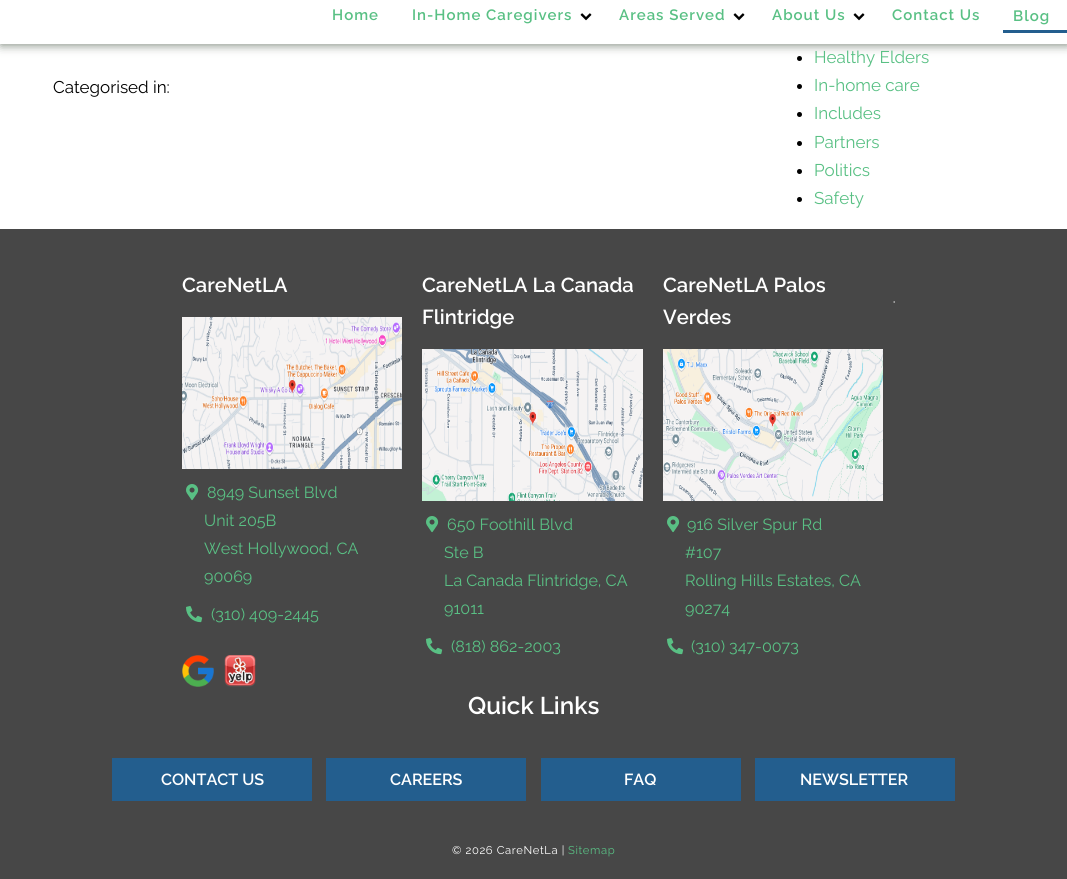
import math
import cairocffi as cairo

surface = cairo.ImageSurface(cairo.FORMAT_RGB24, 1067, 879)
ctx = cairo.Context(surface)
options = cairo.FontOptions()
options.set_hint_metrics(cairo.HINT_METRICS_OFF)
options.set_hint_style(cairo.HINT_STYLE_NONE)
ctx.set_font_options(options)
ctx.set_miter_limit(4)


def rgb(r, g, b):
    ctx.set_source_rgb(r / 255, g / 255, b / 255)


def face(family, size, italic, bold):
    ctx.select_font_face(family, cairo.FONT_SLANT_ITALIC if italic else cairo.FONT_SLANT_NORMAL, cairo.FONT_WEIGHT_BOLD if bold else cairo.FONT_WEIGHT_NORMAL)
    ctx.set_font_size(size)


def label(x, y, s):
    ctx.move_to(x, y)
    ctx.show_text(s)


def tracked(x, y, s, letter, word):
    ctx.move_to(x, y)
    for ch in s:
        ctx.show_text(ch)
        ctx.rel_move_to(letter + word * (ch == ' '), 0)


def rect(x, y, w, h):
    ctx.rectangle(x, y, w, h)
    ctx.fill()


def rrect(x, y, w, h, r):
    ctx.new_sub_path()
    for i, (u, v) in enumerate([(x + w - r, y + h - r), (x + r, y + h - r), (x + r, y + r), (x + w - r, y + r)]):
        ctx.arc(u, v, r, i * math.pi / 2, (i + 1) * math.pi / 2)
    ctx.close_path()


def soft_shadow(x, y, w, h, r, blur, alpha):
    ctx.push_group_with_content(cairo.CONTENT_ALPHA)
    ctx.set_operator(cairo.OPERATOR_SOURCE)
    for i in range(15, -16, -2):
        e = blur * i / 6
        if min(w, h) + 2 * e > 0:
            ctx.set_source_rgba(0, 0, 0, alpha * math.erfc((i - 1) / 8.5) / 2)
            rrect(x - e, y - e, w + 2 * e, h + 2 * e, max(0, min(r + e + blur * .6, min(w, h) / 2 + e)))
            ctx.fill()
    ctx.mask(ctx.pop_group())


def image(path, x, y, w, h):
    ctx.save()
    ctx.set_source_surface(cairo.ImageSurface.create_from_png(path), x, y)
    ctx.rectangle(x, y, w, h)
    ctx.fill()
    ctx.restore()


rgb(255, 255, 255)
ctx.paint()
rgb(0, 0, 0)
ctx.arc(799.5, 58.5, 2.5, 0, 2 * math.pi)
ctx.fill()
rgb(121, 132, 120)
soft_shadow(1, 1, 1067, 44, 0, 5, 1)
rgb(255, 255, 255)
rect(0, 0, 1067, 44)
face('Raleway SemiBold', 15, 0, 0)
rgb(89, 192, 132)
tracked(332, 20, 'Home', 1, 0)
tracked(412, 20, 'In-Home Caregivers', 1, 0)
image('image0.png', 580, 13, 12, 8)
tracked(619, 20, 'Areas Served', 1, 0)
image('image0.png', 733, 13, 12, 8)
tracked(772, 20, 'About Us', 1, 0)
image('image0.png', 853, 13, 12, 8)
tracked(892, 20, 'Contact Us', 1, 0)
tracked(1013, 21, 'Blog', 1, 0)
rgb(35, 94, 142)
rect(1003, 30, 64, 3)
face('Raleway', 17, 0, 0)
rgb(0, 0, 0)
label(53, 93, 'Categorised in:')
rgb(89, 192, 132)
label(814, 63, 'Healthy Elders')
rgb(0, 0, 0)
ctx.new_path()
ctx.arc(799.5, 86.5, 2.5, 0, 2 * math.pi)
ctx.fill()
rgb(89, 192, 132)
label(814, 91, 'In-home care')
rgb(0, 0, 0)
ctx.new_path()
ctx.arc(799.5, 114.5, 2.5, 0, 2 * math.pi)
ctx.fill()
rgb(89, 192, 132)
label(814, 119, 'Includes')
rgb(0, 0, 0)
ctx.new_path()
ctx.arc(799.5, 143.5, 2.5, 0, 2 * math.pi)
ctx.fill()
rgb(89, 192, 132)
label(814, 148, 'Partners')
rgb(0, 0, 0)
ctx.new_path()
ctx.arc(799.5, 171.5, 2.5, 0, 2 * math.pi)
ctx.fill()
rgb(89, 192, 132)
label(814, 176, 'Politics')
rgb(0, 0, 0)
ctx.new_path()
ctx.arc(799.5, 199.5, 2.5, 0, 2 * math.pi)
ctx.fill()
rgb(89, 192, 132)
label(814, 204, 'Safety')
rgb(71, 71, 71)
rect(0, 229, 1067, 650)
face('Raleway SemiBold', 20.25, 0, 0)
rgb(255, 255, 255)
label(182, 292, 'CareNetLA')
image('image1.png', 182, 317, 220, 152)
image('image2.png', 186, 484, 13, 17)
face('Raleway', 16.1, 0, 0)
rgb(89, 192, 132)
label(207, 498, '8949 Sunset Blvd')
label(204, 526, 'Unit 205B')
label(204, 554, 'West Hollywood, CA')
label(204, 582, '90069')
image('image3.png', 186, 606, 17, 17)
label(211, 620, '(310) 409-2445')
image('image4.png', 182, 655, 32, 32)
image('image5.png', 224, 655, 32, 32)
face('Raleway SemiBold', 20.25, 0, 0)
rgb(255, 255, 255)
label(422, 292, 'CareNetLA La Canada')
label(422, 324, 'Flintridge')
image('image6.png', 422, 349, 221, 152)
image('image2.png', 426, 516, 13, 17)
face('Raleway', 16.1, 0, 0)
rgb(89, 192, 132)
label(447, 530, '650 Foothill Blvd')
label(444, 558, 'Ste B')
label(444, 586, 'La Canada Flintridge, CA')
label(444, 614, '91011')
image('image3.png', 426, 638, 17, 17)
label(451, 652, '(818) 862-2003')
face('Raleway SemiBold', 20.25, 0, 0)
rgb(255, 255, 255)
label(663, 292, 'CareNetLA Palos')
label(663, 324, 'Verdes')
image('image7.png', 663, 349, 220, 152)
image('image2.png', 667, 516, 13, 17)
face('Raleway', 16.1, 0, 0)
rgb(89, 192, 132)
label(687, 530, '916 Silver Spur Rd')
label(685, 558, '#107')
label(685, 586, 'Rolling Hills Estates, CA')
label(685, 614, '90274')
image('image3.png', 667, 638, 17, 17)
label(691, 652, '(310) 347-0073')
rgb(155, 155, 155)
rect(894, 301, 1, 2)
rect(893, 302, 2, 1)
rgb(115, 115, 115)
rect(893, 301, 1, 2)
face('Raleway SemiBold', 24.25, 0, 0)
rgb(255, 255, 255)
label(468, 714, 'Quick Links')
rgb(35, 94, 142)
rect(112, 758, 200, 43)
face('Raleway SemiBold', 16.1, 0, 0)
rgb(255, 255, 255)
label(161, 785, 'CONTACT US')
rgb(35, 94, 142)
rect(326, 758, 200, 43)
rgb(255, 255, 255)
label(390, 785, 'CAREERS')
rgb(35, 94, 142)
rect(541, 758, 200, 43)
rgb(255, 255, 255)
label(624, 785, 'FAQ')
rgb(35, 94, 142)
rect(755, 758, 200, 43)
rgb(255, 255, 255)
label(800, 785, 'NEWSLETTER')
face('Raleway', 11.25, 0, 0)
tracked(452, 854, '© 2026 CareNetLa |', 0.6, 0)
rgb(89, 192, 132)
tracked(568, 854, 'Sitemap', 0.6, 0)
surface.write_to_png('render.png')
